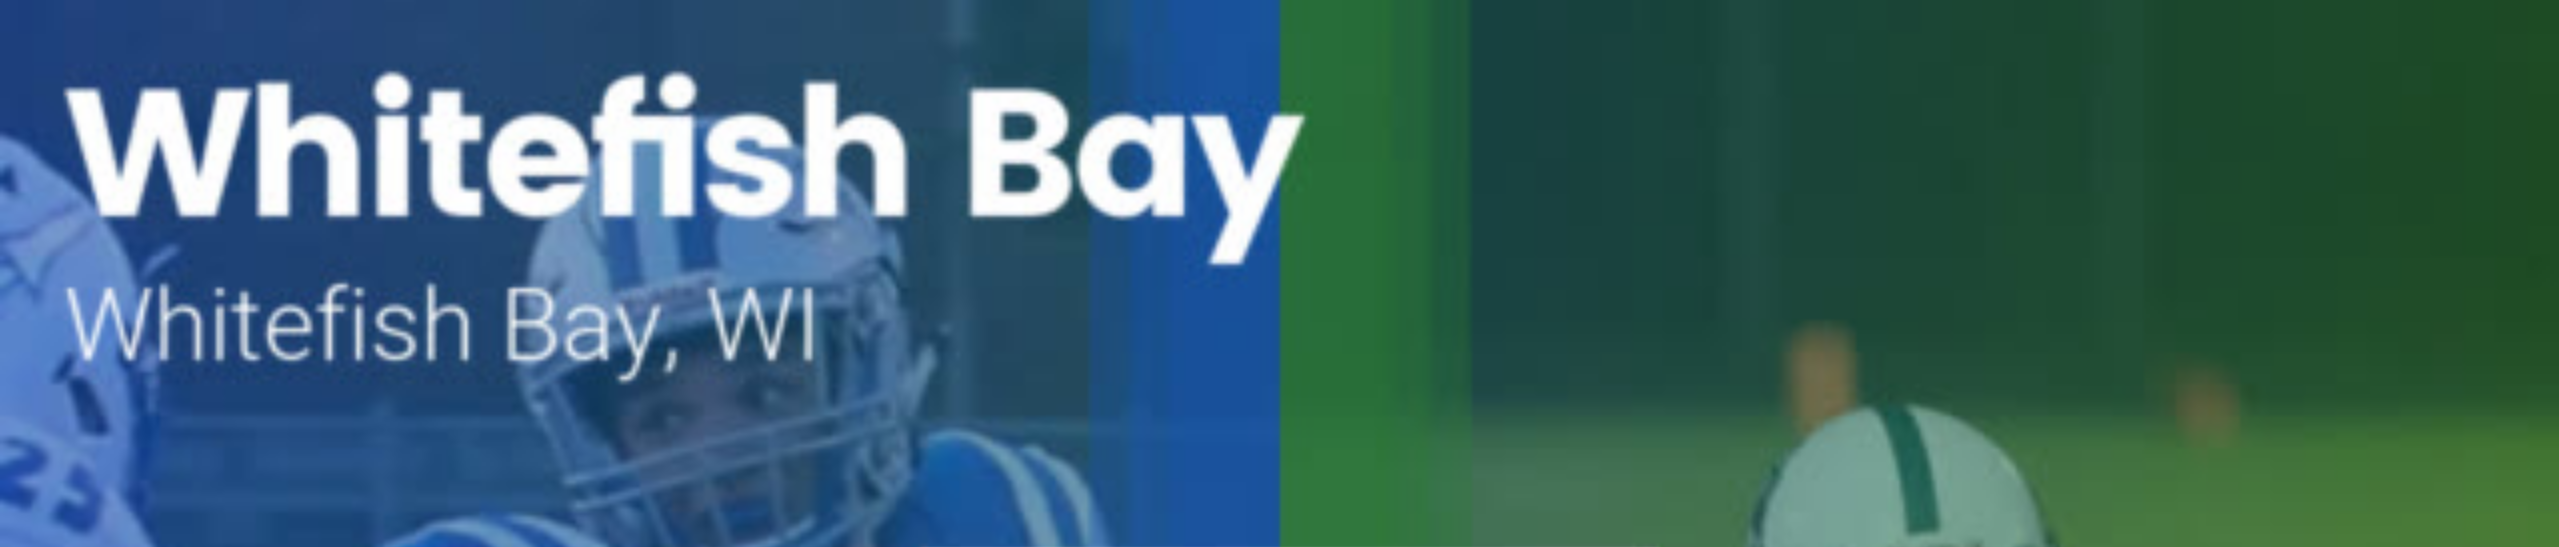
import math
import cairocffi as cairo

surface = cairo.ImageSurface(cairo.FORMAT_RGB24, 2559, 547)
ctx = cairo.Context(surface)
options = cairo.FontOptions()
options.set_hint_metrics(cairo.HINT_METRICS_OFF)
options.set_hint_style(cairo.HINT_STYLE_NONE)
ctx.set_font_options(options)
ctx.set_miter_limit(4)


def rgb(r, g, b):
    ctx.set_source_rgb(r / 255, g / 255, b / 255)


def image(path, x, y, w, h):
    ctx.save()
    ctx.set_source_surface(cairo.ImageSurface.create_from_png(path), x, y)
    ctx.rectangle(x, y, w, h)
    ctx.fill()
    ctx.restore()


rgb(255, 255, 255)
ctx.paint()
image('image0.png', 0, 0, 2559, 547)
surface.write_to_png('render.png')
